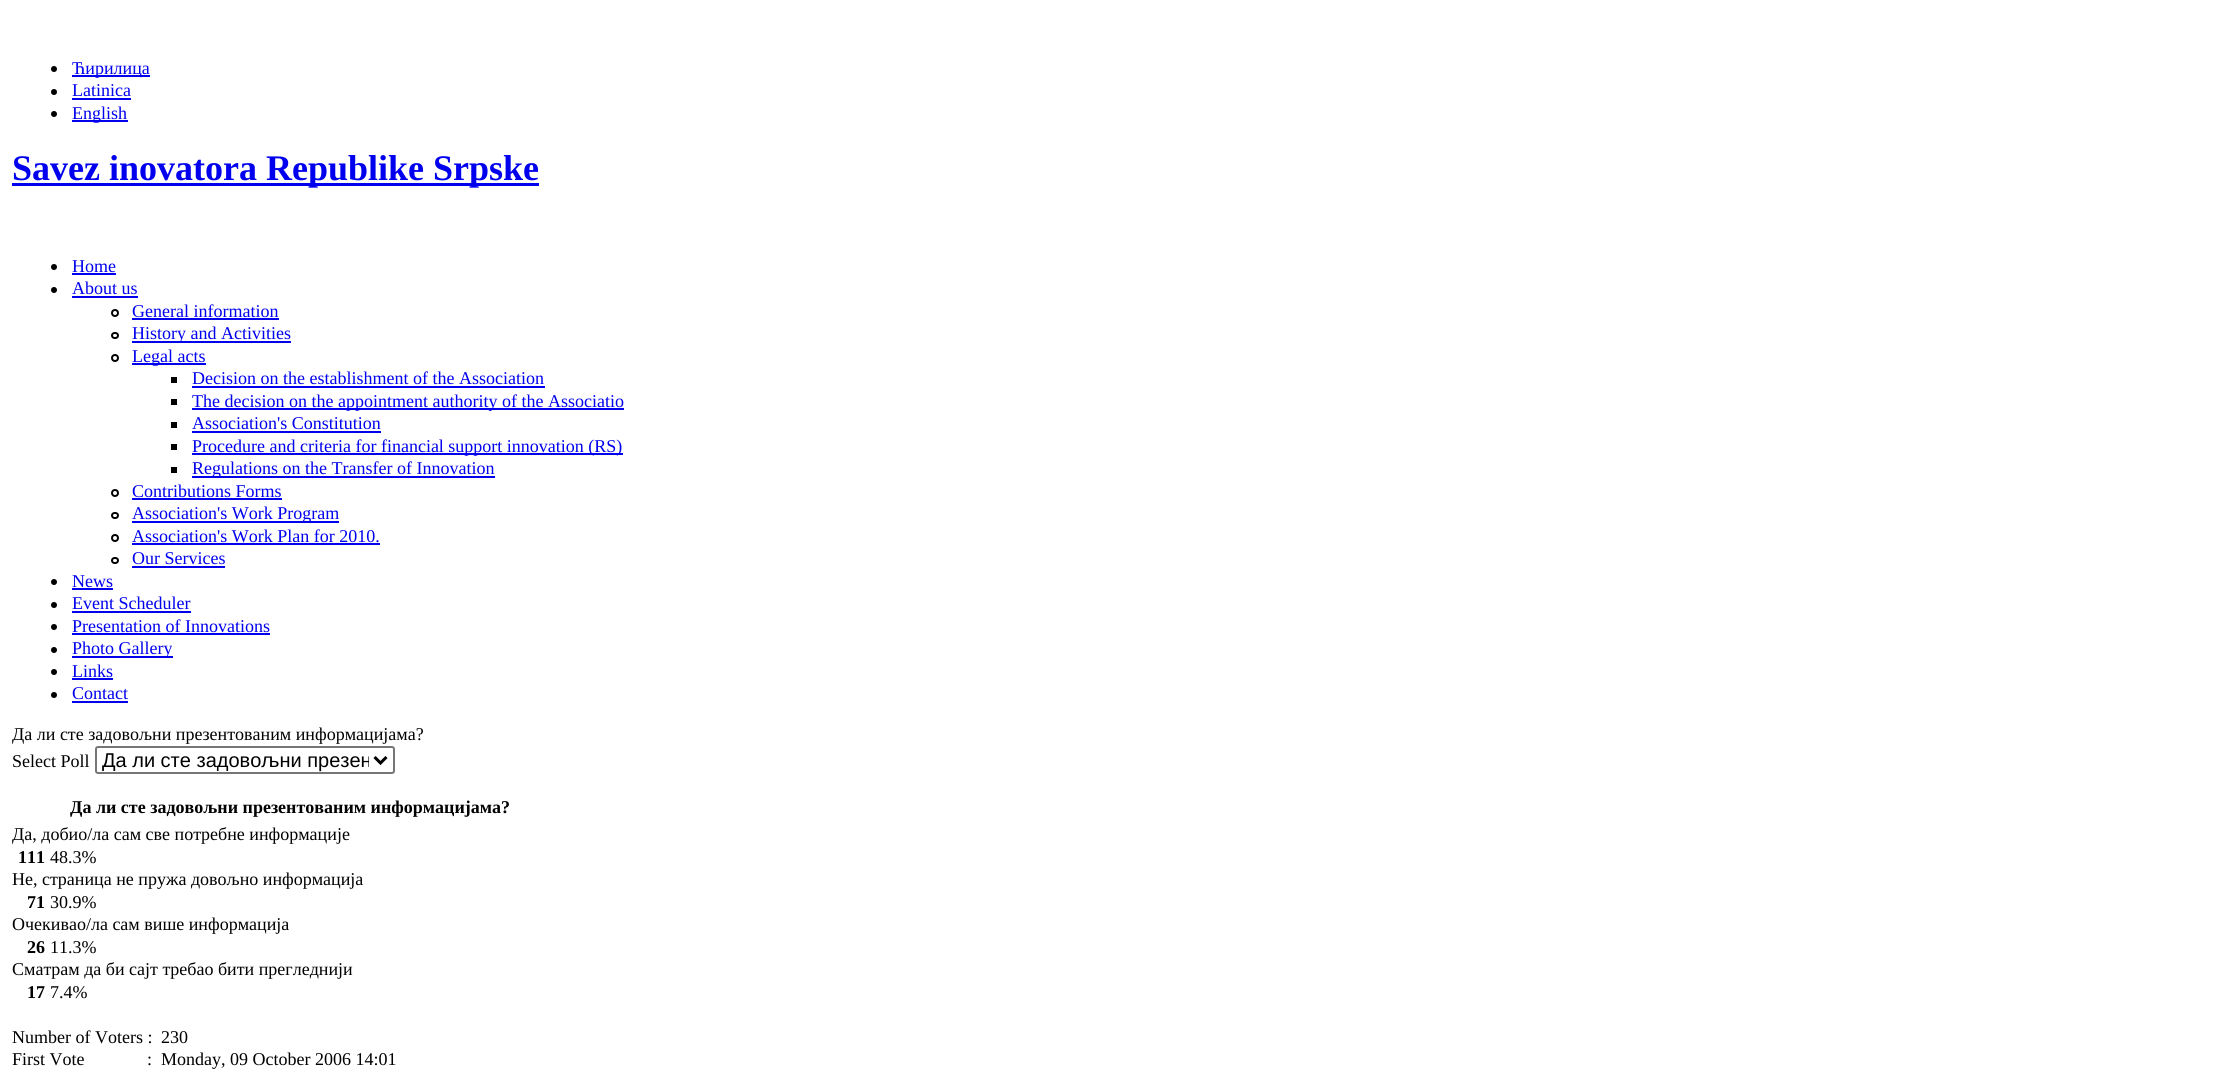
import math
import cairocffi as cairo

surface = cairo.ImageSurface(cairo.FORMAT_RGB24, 2230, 1081)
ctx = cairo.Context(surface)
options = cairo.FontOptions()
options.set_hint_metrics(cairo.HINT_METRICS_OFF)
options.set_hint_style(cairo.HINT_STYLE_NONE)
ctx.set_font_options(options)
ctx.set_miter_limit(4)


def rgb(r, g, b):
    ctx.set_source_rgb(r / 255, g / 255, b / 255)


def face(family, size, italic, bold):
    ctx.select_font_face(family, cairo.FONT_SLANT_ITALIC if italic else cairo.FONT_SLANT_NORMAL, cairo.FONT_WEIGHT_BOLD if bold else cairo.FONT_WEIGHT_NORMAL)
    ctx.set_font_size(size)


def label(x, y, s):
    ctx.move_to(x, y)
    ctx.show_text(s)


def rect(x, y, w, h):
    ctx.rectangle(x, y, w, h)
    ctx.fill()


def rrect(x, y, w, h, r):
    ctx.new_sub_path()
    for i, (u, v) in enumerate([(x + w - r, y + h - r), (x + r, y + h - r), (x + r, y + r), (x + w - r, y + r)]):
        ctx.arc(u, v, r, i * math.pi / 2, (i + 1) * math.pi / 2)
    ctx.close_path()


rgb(255, 255, 255)
ctx.paint()
rgb(0, 0, 0)
ctx.arc(54, 69, 3, 0, 2 * math.pi)
ctx.fill()
rgb(0, 0, 238)
rect(72, 75, 78, 2)
face('Liberation Serif', 18, 0, 0)
label(72, 74, 'Ћирилица')
rgb(0, 0, 0)
ctx.new_path()
ctx.arc(54, 92, 3, 0, 2 * math.pi)
ctx.fill()
rgb(0, 0, 238)
label(72, 96, 'Latinica')
rect(72, 98, 59, 2)
rgb(0, 0, 0)
ctx.new_path()
ctx.arc(54, 114, 3, 0, 2 * math.pi)
ctx.fill()
rgb(0, 0, 238)
rect(72, 120, 56, 2)
label(72, 119, 'English')
rect(12, 183, 527, 3)
face('Liberation Serif', 36, 0, 1)
label(12, 180, 'Savez inovatora Republike Srpske')
rgb(0, 0, 0)
ctx.new_path()
ctx.arc(54, 267, 3, 0, 2 * math.pi)
ctx.fill()
face('Liberation Serif', 18, 0, 0)
rgb(0, 0, 238)
label(72, 272, 'Home')
rect(72, 273, 44, 2)
rgb(0, 0, 0)
ctx.new_path()
ctx.arc(54, 290, 3, 0, 2 * math.pi)
ctx.fill()
rgb(0, 0, 238)
label(72, 294, 'About us')
rect(72, 296, 66, 2)
ctx.new_path()
ctx.arc(115, 313, 3, 0, 2 * math.pi)
rgb(0, 0, 0)
ctx.stroke()
rgb(0, 0, 238)
label(132, 317, 'General information')
rect(132, 318, 147, 2)
rrect(112, 333, 6, 5, 2.5)
rgb(0, 0, 0)
ctx.stroke()
rgb(0, 0, 238)
rect(132, 341, 159, 2)
label(132, 339, 'History and Activities')
ctx.new_path()
ctx.arc(115, 358, 3, 0, 2 * math.pi)
rgb(0, 0, 0)
ctx.stroke()
rgb(0, 0, 238)
rect(132, 363, 74, 2)
label(132, 362, 'Legal acts')
rgb(0, 0, 0)
rect(171, 377, 6, 6)
rgb(0, 0, 238)
label(192, 384, 'Decision on the establishment of the Association')
rect(192, 386, 353, 2)
rgb(0, 0, 0)
rect(171, 399, 6, 6)
rgb(0, 0, 238)
rect(192, 408, 432, 2)
label(192, 407, 'The decision on the appointment authority of the Associatio')
rgb(0, 0, 0)
rect(171, 422, 6, 6)
rgb(0, 0, 238)
label(192, 429, 'Association\'s Constitution')
rect(192, 431, 189, 2)
rgb(0, 0, 0)
rect(171, 444, 6, 6)
rgb(0, 0, 238)
rect(192, 453, 431, 2)
label(192, 452, 'Procedure and criteria for financial support innovation (RS)')
rgb(0, 0, 0)
rect(171, 467, 6, 6)
rgb(0, 0, 238)
rect(192, 476, 303, 2)
label(192, 474, 'Regulations on the Transfer of Innovation')
ctx.new_path()
ctx.arc(115, 493, 3, 0, 2 * math.pi)
rgb(0, 0, 0)
ctx.stroke()
rgb(0, 0, 238)
label(132, 497, 'Contributions Forms')
rect(132, 498, 150, 2)
rrect(112, 513, 6, 5, 2.5)
rgb(0, 0, 0)
ctx.stroke()
rgb(0, 0, 238)
rect(132, 521, 207, 2)
label(132, 519, 'Association\'s Work Program')
ctx.new_path()
ctx.arc(115, 538, 3, 0, 2 * math.pi)
rgb(0, 0, 0)
ctx.stroke()
rgb(0, 0, 238)
label(132, 542, 'Association\'s Work Plan for 2010.')
rect(132, 543, 248, 2)
rrect(112, 558, 6, 5, 2.5)
rgb(0, 0, 0)
ctx.stroke()
rgb(0, 0, 238)
label(132, 564, 'Our Services')
rect(132, 566, 93, 2)
rgb(0, 0, 0)
ctx.new_path()
ctx.arc(54, 582, 3, 0, 2 * math.pi)
ctx.fill()
rgb(0, 0, 238)
label(72, 587, 'News')
rect(72, 588, 41, 2)
rgb(0, 0, 0)
ctx.new_path()
ctx.arc(54, 605, 3, 0, 2 * math.pi)
ctx.fill()
rgb(0, 0, 238)
label(72, 609, 'Event Scheduler')
rect(72, 611, 119, 2)
rgb(0, 0, 0)
ctx.new_path()
ctx.arc(54, 627, 3, 0, 2 * math.pi)
ctx.fill()
rgb(0, 0, 238)
label(72, 632, 'Presentation of Innovations')
rect(72, 633, 198, 2)
rgb(0, 0, 0)
ctx.new_path()
ctx.arc(54, 650, 3, 0, 2 * math.pi)
ctx.fill()
rgb(0, 0, 238)
rect(72, 656, 101, 2)
label(72, 654, 'Photo Gallery')
rgb(0, 0, 0)
ctx.new_path()
ctx.arc(54, 672, 3, 0, 2 * math.pi)
ctx.fill()
rgb(0, 0, 238)
label(72, 677, 'Links')
rect(72, 678, 41, 2)
rgb(0, 0, 0)
ctx.new_path()
ctx.arc(54, 695, 3, 0, 2 * math.pi)
ctx.fill()
rgb(0, 0, 238)
label(72, 699, 'Contact')
rect(72, 701, 56, 2)
rgb(0, 0, 0)
label(12, 740, 'Да ли сте задовољни презентованим информацијама?')
label(12, 767, 'Select Poll')
rrect(96, 747, 298, 26, 2)
rgb(118, 118, 118)
ctx.stroke()
ctx.new_path()
ctx.move_to(374.5, 757)
ctx.line_to(380.5, 763)
ctx.line_to(386.5, 757)
rgb(0, 0, 0)
ctx.set_line_width(3)
ctx.stroke()
ctx.save()
ctx.rectangle(102, 747, 267, 26)
ctx.clip()
face('Liberation Sans', 20, 0, 0)
label(102, 767, 'Да ли сте задовољни презен')
ctx.restore()
face('Liberation Serif', 18, 0, 1)
label(70, 813, 'Да ли сте задовољни презентованим информацијама?')
face('Liberation Serif', 18, 0, 0)
label(12, 840, 'Да, добио/ла сам све потребне информације')
face('Liberation Serif', 18, 0, 1)
label(18, 863, '111')
face('Liberation Serif', 18, 0, 0)
label(50, 863, '48.3%')
label(12, 885, 'Не, страница не пружа довољно информација')
face('Liberation Serif', 18, 0, 1)
label(27, 908, '71')
face('Liberation Serif', 18, 0, 0)
label(50, 908, '30.9%')
label(12, 930, 'Очекивао/ла сам више информација')
face('Liberation Serif', 18, 0, 1)
label(27, 953, '26')
face('Liberation Serif', 18, 0, 0)
label(50, 953, '11.3%')
label(12, 975, 'Сматрам да би сајт требао бити прегледнији')
face('Liberation Serif', 18, 0, 1)
label(27, 998, '17')
face('Liberation Serif', 18, 0, 0)
label(50, 998, '7.4%')
label(12, 1043, 'Number of Voters :')
label(161, 1043, '230')
label(12, 1065, 'First Vote')
label(147, 1065, ':')
label(161, 1065, 'Monday, 09 October 2006 14:01')
surface.write_to_png('render.png')
